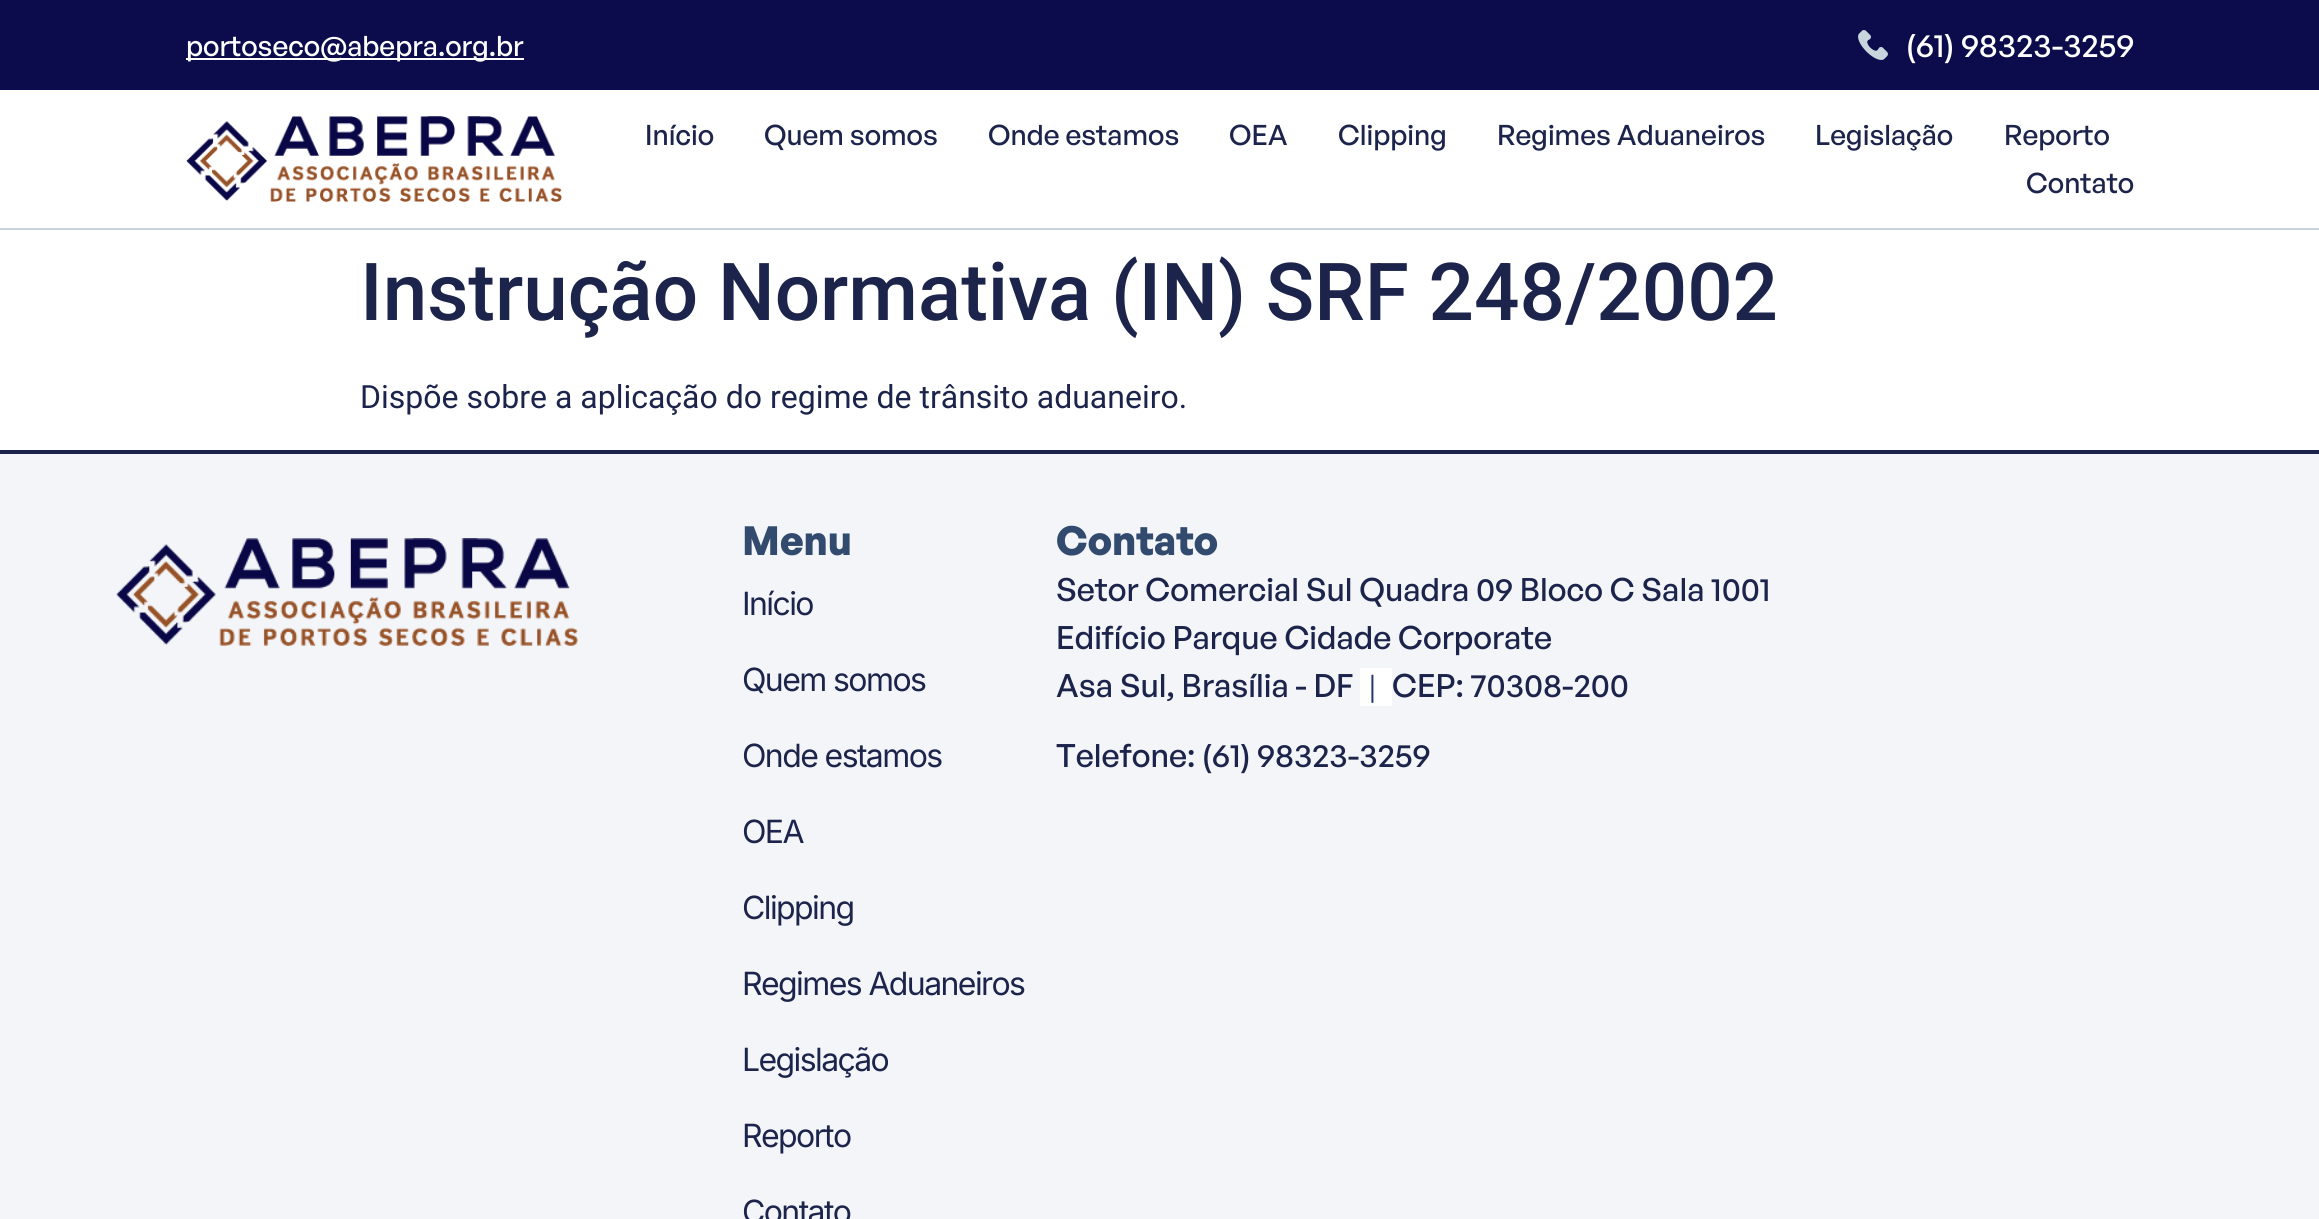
import math
import cairocffi as cairo

surface = cairo.ImageSurface(cairo.FORMAT_RGB24, 2319, 1219)
ctx = cairo.Context(surface)
options = cairo.FontOptions()
options.set_hint_metrics(cairo.HINT_METRICS_OFF)
options.set_hint_style(cairo.HINT_STYLE_NONE)
ctx.set_font_options(options)
ctx.set_miter_limit(4)


def rgb(r, g, b):
    ctx.set_source_rgb(r / 255, g / 255, b / 255)


def face(family, size, italic, bold):
    ctx.select_font_face(family, cairo.FONT_SLANT_ITALIC if italic else cairo.FONT_SLANT_NORMAL, cairo.FONT_WEIGHT_BOLD if bold else cairo.FONT_WEIGHT_NORMAL)
    ctx.set_font_size(size)


def label(x, y, s):
    ctx.move_to(x, y)
    ctx.show_text(s)


def tracked(x, y, s, letter, word):
    ctx.move_to(x, y)
    for ch in s:
        ctx.show_text(ch)
        ctx.rel_move_to(letter + word * (ch == ' '), 0)


def rect(x, y, w, h):
    ctx.rectangle(x, y, w, h)
    ctx.fill()


def image(path, x, y, w, h):
    ctx.save()
    ctx.set_source_surface(cairo.ImageSurface.create_from_png(path), x, y)
    ctx.rectangle(x, y, w, h)
    ctx.fill()
    ctx.restore()


rgb(255, 255, 255)
ctx.paint()
rgb(12, 12, 76)
rect(0, 0, 2319, 90)
rgb(255, 255, 255)
rect(186, 58, 338, 2)
face('General Sans Medium', 28, 0, 0)
label(186, 56, 'portoseco@abepra.org.br')
image('image0.png', 1858, 30, 30, 30)
face('General Sans Medium', 32, 0, 0)
label(1906, 57, '(61) 98323-3259')
rgb(200, 213, 220)
rect(0, 228, 2319, 2)
image('image1.png', 186, 116, 376, 86)
face('General Sans Medium', 28, 0, 0)
rgb(28, 36, 75)
label(645, 145, 'Início')
label(764, 145, 'Quem somos')
label(988, 145, 'Onde estamos')
label(1229, 145, 'OEA')
label(1338, 145, 'Clipping')
label(1497, 145, 'Regimes Aduaneiros')
label(1815, 145, 'Legislação')
label(2004, 145, 'Reporto')
label(2026, 193, 'Contato')
face('Roboto Medium', 80, 0, 0)
label(360, 320, 'Instrução Normativa (IN) SRF 248/2002')
face('Roboto', 32, 0, 0)
label(360, 408, 'Dispõe sobre a aplicação do regime de trânsito aduaneiro.')
rgb(243, 245, 248)
rect(0, 454, 2319, 765)
rgb(28, 36, 75)
rect(0, 450, 2319, 4)
image('image2.png', 116, 538, 462, 108)
face('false', 40, 0, 1)
rgb(50, 74, 109)
label(742, 555, 'Menu')
face('Inter', 32, 0, 0)
rgb(28, 36, 75)
tracked(742, 615, 'Início', -1.6, 0)
tracked(742, 691, 'Quem somos', -1.6, 0)
tracked(742, 767, 'Onde estamos', -1.6, 0)
tracked(742, 843, 'OEA', -1.6, 0)
tracked(742, 919, 'Clipping', -1.6, 0)
tracked(742, 995, 'Regimes Aduaneiros', -1.6, 0)
tracked(742, 1071, 'Legislação', -1.6, 0)
tracked(742, 1147, 'Reporto', -1.6, 0)
tracked(742, 1223, 'Contato', -1.6, 0)
face('false', 40, 0, 1)
rgb(50, 74, 109)
label(1056, 555, 'Contato')
face('General Sans Medium', 32, 0, 0)
rgb(28, 36, 75)
label(1056, 601, 'Setor Comercial Sul Quadra 09 Bloco C Sala 1001')
label(1056, 649, 'Edifício Parque Cidade Corporate')
label(1056, 697, 'Asa Sul, Brasília - DF')
rgb(255, 255, 255)
rect(1360, 668, 32, 38)
face('Montserrat', 30, 0, 0)
rgb(36, 53, 109)
label(1368, 697, '|')
face('General Sans Medium', 32, 0, 0)
rgb(28, 36, 75)
label(1392, 697, 'CEP: 70308-200')
label(1056, 767, 'Telefone: (61) 98323-3259')
surface.write_to_png('render.png')
